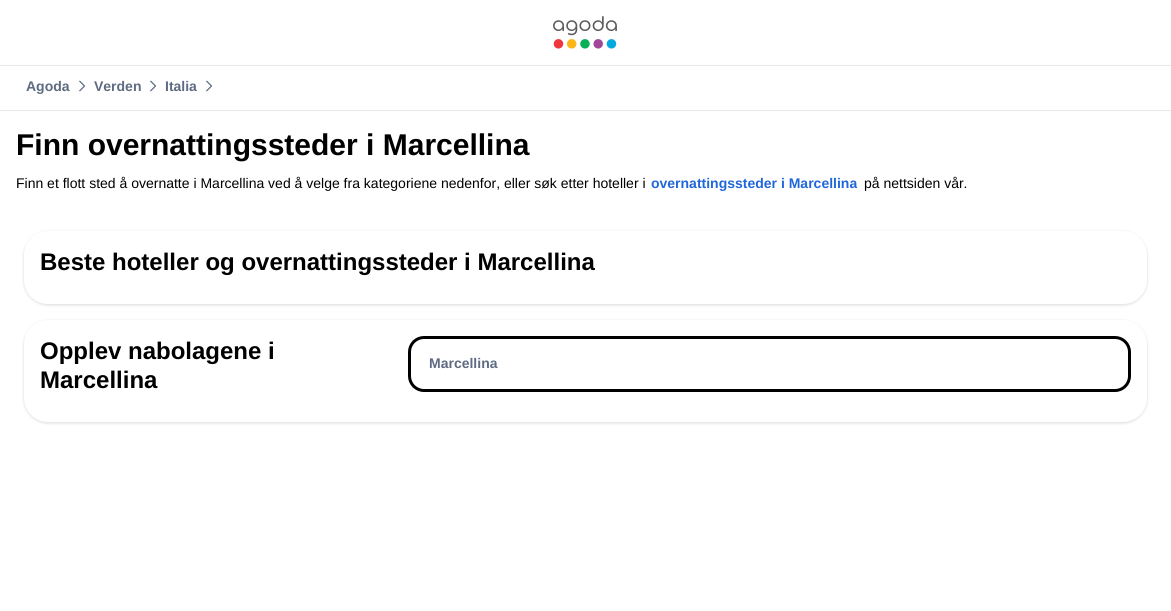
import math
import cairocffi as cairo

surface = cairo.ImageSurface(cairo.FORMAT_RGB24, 1171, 611)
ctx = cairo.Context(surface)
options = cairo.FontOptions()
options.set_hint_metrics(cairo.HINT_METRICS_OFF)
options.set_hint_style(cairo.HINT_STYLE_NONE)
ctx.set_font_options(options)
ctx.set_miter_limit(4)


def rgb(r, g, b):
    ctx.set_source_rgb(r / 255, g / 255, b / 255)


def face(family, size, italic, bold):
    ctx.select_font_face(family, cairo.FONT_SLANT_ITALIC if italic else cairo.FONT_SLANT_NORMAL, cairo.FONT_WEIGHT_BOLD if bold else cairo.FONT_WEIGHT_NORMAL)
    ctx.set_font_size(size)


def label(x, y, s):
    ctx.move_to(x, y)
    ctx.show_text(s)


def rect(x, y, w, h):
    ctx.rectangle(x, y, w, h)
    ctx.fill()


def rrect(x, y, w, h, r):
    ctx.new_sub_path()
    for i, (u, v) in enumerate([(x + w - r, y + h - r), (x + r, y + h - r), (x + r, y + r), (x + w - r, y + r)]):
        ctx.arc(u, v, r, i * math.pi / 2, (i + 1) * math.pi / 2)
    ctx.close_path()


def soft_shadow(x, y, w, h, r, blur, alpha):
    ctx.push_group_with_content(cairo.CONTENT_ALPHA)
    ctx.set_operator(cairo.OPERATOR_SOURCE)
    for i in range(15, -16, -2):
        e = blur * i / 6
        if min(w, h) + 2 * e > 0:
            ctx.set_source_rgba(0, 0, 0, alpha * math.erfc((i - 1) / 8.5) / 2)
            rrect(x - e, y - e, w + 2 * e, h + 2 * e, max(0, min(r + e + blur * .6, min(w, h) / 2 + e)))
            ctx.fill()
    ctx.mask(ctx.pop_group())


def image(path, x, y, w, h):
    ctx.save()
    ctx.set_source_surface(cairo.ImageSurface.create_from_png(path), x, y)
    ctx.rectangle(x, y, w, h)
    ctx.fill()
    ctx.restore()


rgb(255, 255, 255)
ctx.paint()
image('image0.png', 553, 16, 64, 33)
rgb(229, 231, 235)
rect(0, 65, 1171, 1)
face('Liberation Sans', 14, 0, 1)
rgb(94, 107, 130)
label(26, 91, 'Agoda')
image('image1.png', 79, 80, 6, 12)
label(94, 91, 'Verden')
image('image1.png', 150, 80, 6, 12)
label(165, 91, 'Italia')
image('image1.png', 206, 80, 6, 12)
rgb(229, 231, 235)
rect(0, 110, 1171, 1)
face('Liberation Sans', 30, 0, 1)
rgb(0, 0, 0)
label(16, 155, 'Finn overnattingssteder i Marcellina')
face('Liberation Sans', 14, 0, 0)
label(16, 188, 'Finn et flott sted å overnatte i Marcellina ved å velge fra kategoriene nedenfor, eller søk etter hoteller i')
face('Liberation Sans', 14, 0, 1)
rgb(32, 103, 218)
label(651, 188, 'overnattingssteder i Marcellina')
face('Liberation Sans', 14, 0, 0)
rgb(0, 0, 0)
label(864, 188, 'på nettsiden vår.')
rgb(4, 7, 10)
soft_shadow(24, 232, 1123, 73, 24, 1.5, 0.16)
rgb(255, 255, 255)
rrect(24, 231, 1123, 73, 24)
ctx.fill()
face('Liberation Sans', 24, 0, 1)
rgb(0, 0, 0)
label(40, 270, 'Beste hoteller og overnattingssteder i Marcellina')
rgb(4, 7, 10)
soft_shadow(24, 321, 1123, 102, 24, 1.5, 0.16)
rgb(255, 255, 255)
rrect(24, 320, 1123, 102, 24)
ctx.fill()
rgb(0, 0, 0)
label(40, 359, 'Opplev nabolagene i')
label(40, 388, 'Marcellina')
rrect(409.5, 337.5, 720, 53, 14.5)
ctx.set_line_width(3)
ctx.stroke()
face('Liberation Sans', 14, 0, 1)
rgb(94, 107, 130)
label(429, 368, 'Marcellina')
surface.write_to_png('render.png')
